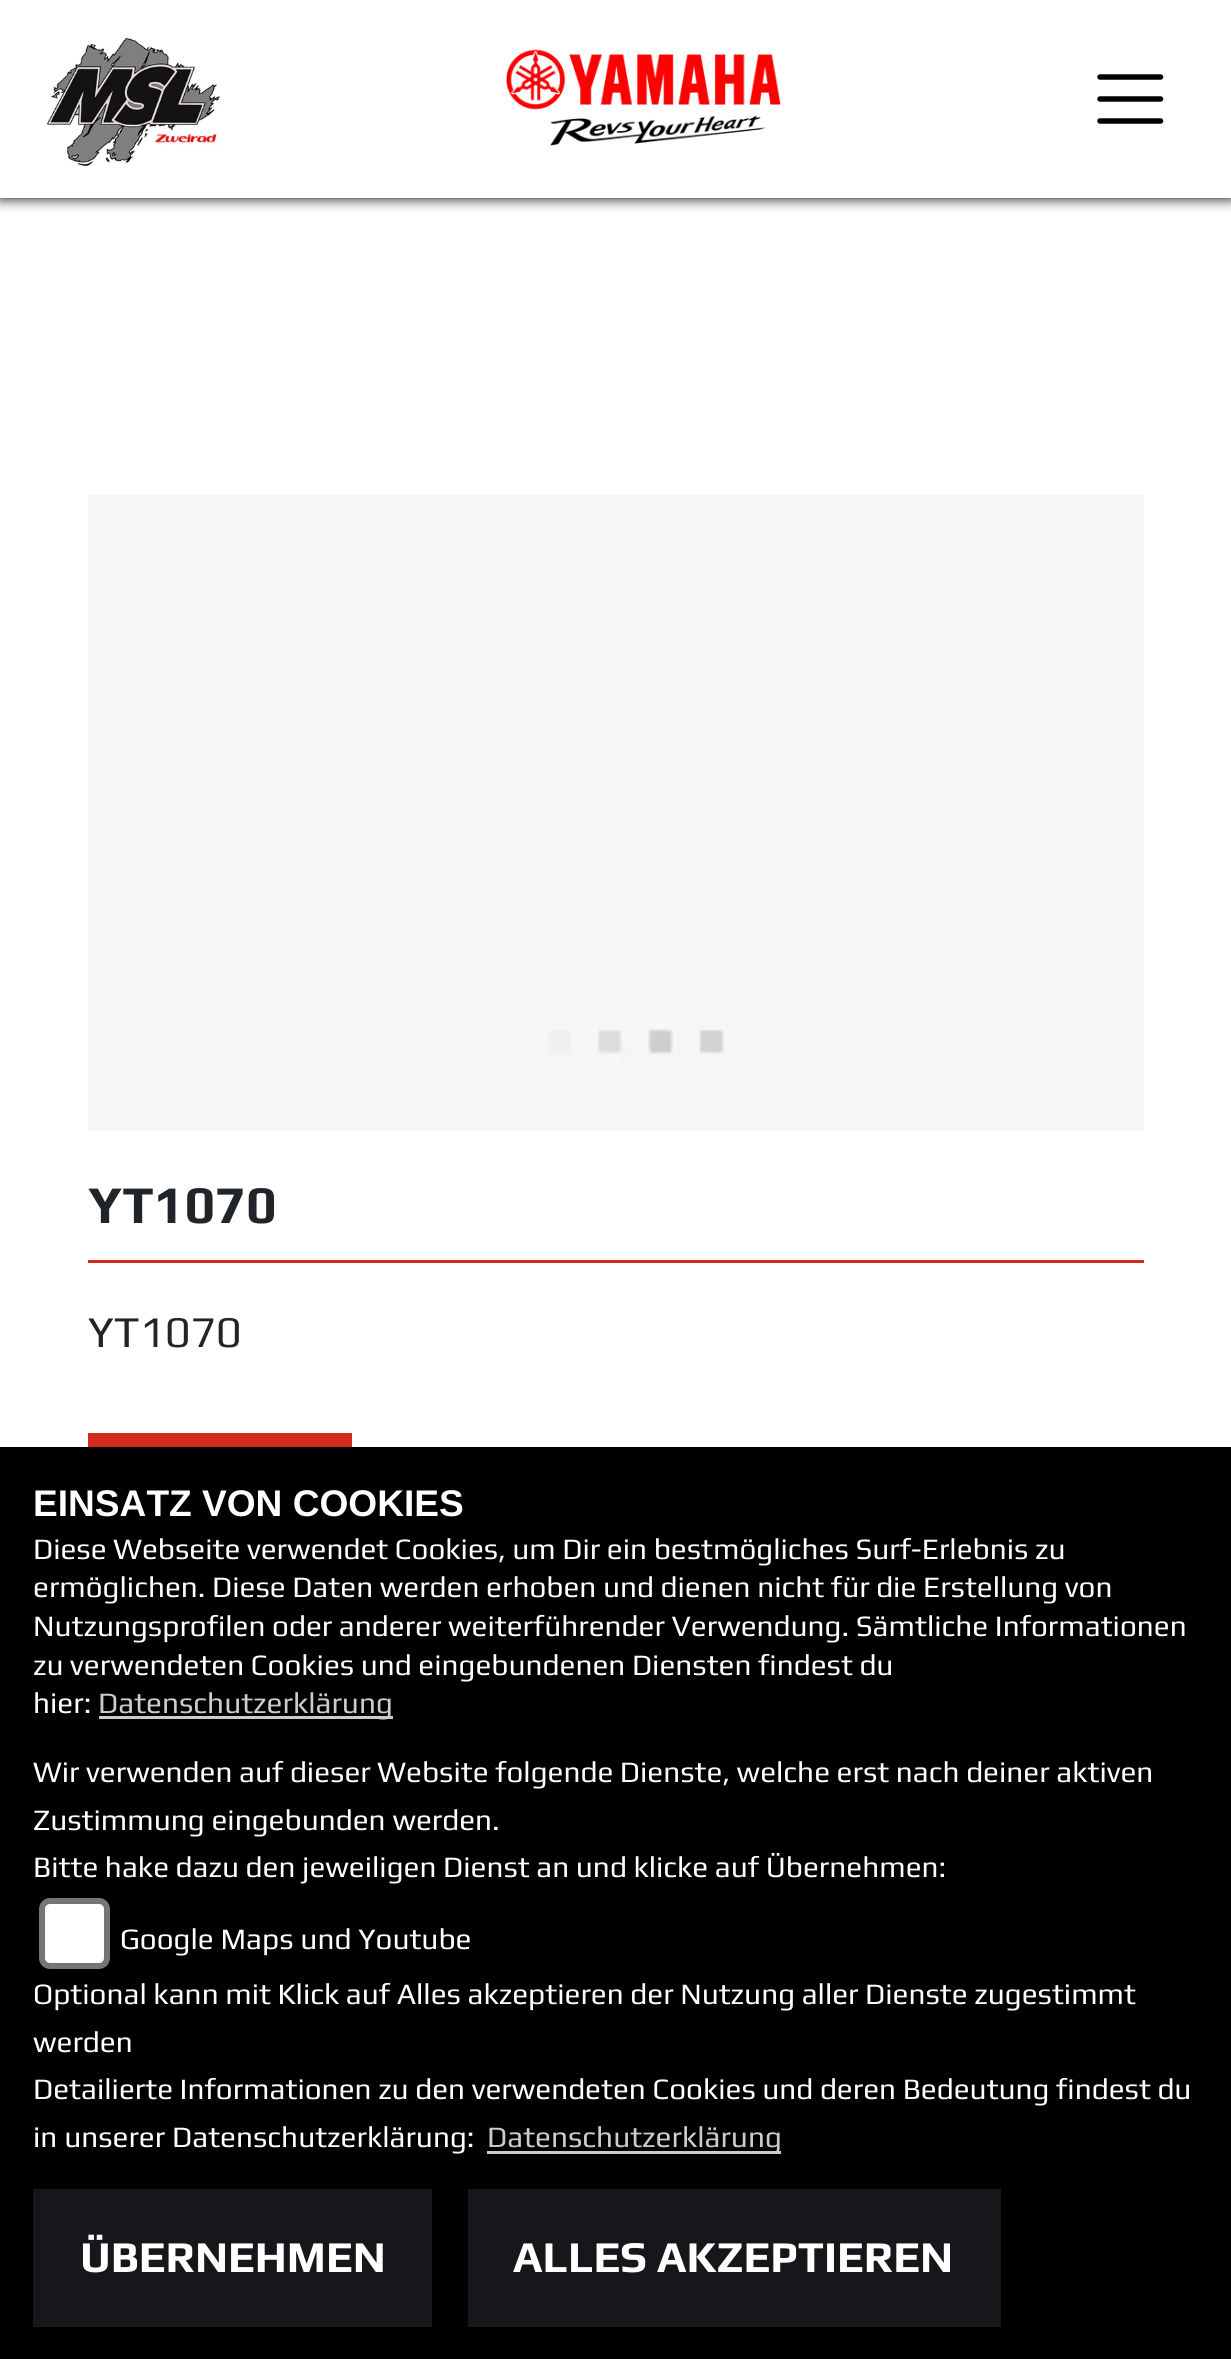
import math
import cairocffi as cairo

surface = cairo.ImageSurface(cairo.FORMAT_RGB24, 1231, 2359)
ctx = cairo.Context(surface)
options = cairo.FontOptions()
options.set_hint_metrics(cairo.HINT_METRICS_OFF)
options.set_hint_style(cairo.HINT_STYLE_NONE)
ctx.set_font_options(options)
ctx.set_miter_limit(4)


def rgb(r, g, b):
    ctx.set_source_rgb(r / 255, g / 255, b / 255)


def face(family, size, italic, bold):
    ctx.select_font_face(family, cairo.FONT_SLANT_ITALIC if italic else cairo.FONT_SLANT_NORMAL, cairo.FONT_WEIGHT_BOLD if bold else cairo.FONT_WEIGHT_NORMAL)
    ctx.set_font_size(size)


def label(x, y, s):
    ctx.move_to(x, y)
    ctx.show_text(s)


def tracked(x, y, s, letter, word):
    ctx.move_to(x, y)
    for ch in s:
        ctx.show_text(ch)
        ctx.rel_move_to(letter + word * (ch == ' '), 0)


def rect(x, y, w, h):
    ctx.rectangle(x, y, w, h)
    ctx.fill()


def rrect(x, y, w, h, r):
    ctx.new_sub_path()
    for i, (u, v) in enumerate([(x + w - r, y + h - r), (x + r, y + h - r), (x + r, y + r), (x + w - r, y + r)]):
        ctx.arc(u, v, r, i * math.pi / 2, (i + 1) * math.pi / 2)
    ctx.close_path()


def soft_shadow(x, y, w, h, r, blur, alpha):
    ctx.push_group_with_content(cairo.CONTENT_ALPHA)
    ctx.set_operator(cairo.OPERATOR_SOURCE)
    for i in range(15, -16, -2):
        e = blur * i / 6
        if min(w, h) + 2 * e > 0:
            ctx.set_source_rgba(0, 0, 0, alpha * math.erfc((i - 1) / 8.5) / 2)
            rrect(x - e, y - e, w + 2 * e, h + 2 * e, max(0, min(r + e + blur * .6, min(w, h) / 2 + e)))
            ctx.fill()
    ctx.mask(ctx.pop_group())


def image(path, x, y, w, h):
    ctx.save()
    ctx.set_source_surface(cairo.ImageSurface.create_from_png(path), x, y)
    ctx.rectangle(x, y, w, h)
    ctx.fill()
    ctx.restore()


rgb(255, 255, 255)
ctx.paint()
rgb(0, 0, 0)
soft_shadow(0, 0, 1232, 198, 0, 7, 1)
rgb(255, 255, 255)
rect(0, 0, 1231, 198)
image('image0.png', 47, 37, 173, 130)
image('image1.png', 506, 49, 275, 97)
ctx.new_path()
ctx.move_to(1100, 77)
ctx.line_to(1160.5, 77)
ctx.move_to(1100, 99)
ctx.line_to(1160.5, 99)
ctx.move_to(1100, 121)
ctx.line_to(1160.5, 121)
rgb(0, 0, 0)
ctx.set_line_width(5.5)
ctx.set_line_cap(cairo.LINE_CAP_ROUND)
ctx.stroke()
image('image2.png', 88, 495, 1056, 635)
face('Play', 53, 0, 1)
rgb(33, 37, 41)
label(88, 1223, 'YT1070')
rgb(213, 43, 30)
rect(88, 1260, 1056, 3)
face('Play', 44, 0, 0)
rgb(33, 37, 41)
label(88, 1347, 'YT1070')
rgb(213, 43, 30)
rect(88, 1433, 264, 14)
rgb(0, 0, 0)
rect(0, 1447, 1231, 912)
face('Liberation Sans', 37.1, 0, 1)
rgb(255, 255, 255)
label(33, 1516, 'EINSATZ VON COOKIES')
face('Play', 29.7, 0, 0)
tracked(33, 1559, 'Diese Webseite verwendet Cookies, um Dir ein bestmögliches Surf-Erlebnis zu', 0, -0.25)
tracked(33, 1597, 'ermöglichen. Diese Daten werden erhoben und dienen nicht für die Erstellung von', 0, -0.25)
tracked(33, 1636, 'Nutzungsprofilen oder anderer weiterführender Verwendung. Sämtliche Informationen', 0, -0.25)
tracked(33, 1675, 'zu verwendeten Cookies und eingebundenen Diensten findest du', 0, -0.25)
label(33, 1713, 'hier:')
rgb(204, 204, 204)
rect(99, 1716, 294, 3)
label(98, 1713, 'Datenschutzerklärung')
rgb(255, 255, 255)
tracked(33, 1782, 'Wir verwenden auf dieser Website folgende Dienste, welche erst nach deiner aktiven', 0, -0.25)
label(33, 1830, 'Zustimmung eingebunden werden.')
tracked(33, 1877, 'Bitte hake dazu den jeweiligen Dienst an und klicke auf Übernehmen:', 0, -0.25)
rrect(42, 1901, 65, 65, 8)
ctx.fill_preserve()
rgb(118, 118, 118)
ctx.set_line_width(6)
ctx.set_line_cap(cairo.LINE_CAP_BUTT)
ctx.stroke()
rgb(255, 255, 255)
label(120, 1949, 'Google Maps und Youtube')
tracked(33, 2004, 'Optional kann mit Klick auf Alles akzeptieren der Nutzung aller Dienste zugestimmt', 0, -0.25)
label(33, 2052, 'werden')
tracked(33, 2099, 'Detailierte Informationen zu den verwendeten Cookies und deren Bedeutung findest du', 0, -0.25)
label(33, 2147, 'in unserer Datenschutzerklärung:')
rgb(204, 204, 204)
rect(487, 2151, 294, 3)
label(487, 2147, 'Datenschutzerklärung')
rgb(22, 23, 26)
rect(33, 2189, 399, 138)
face('Play', 44, 0, 1)
rgb(255, 255, 255)
label(80, 2272, 'ÜBERNEHMEN')
rgb(22, 23, 26)
rect(468, 2189, 533, 138)
rgb(255, 255, 255)
label(513, 2272, 'ALLES AKZEPTIEREN')
surface.write_to_png('render.png')
